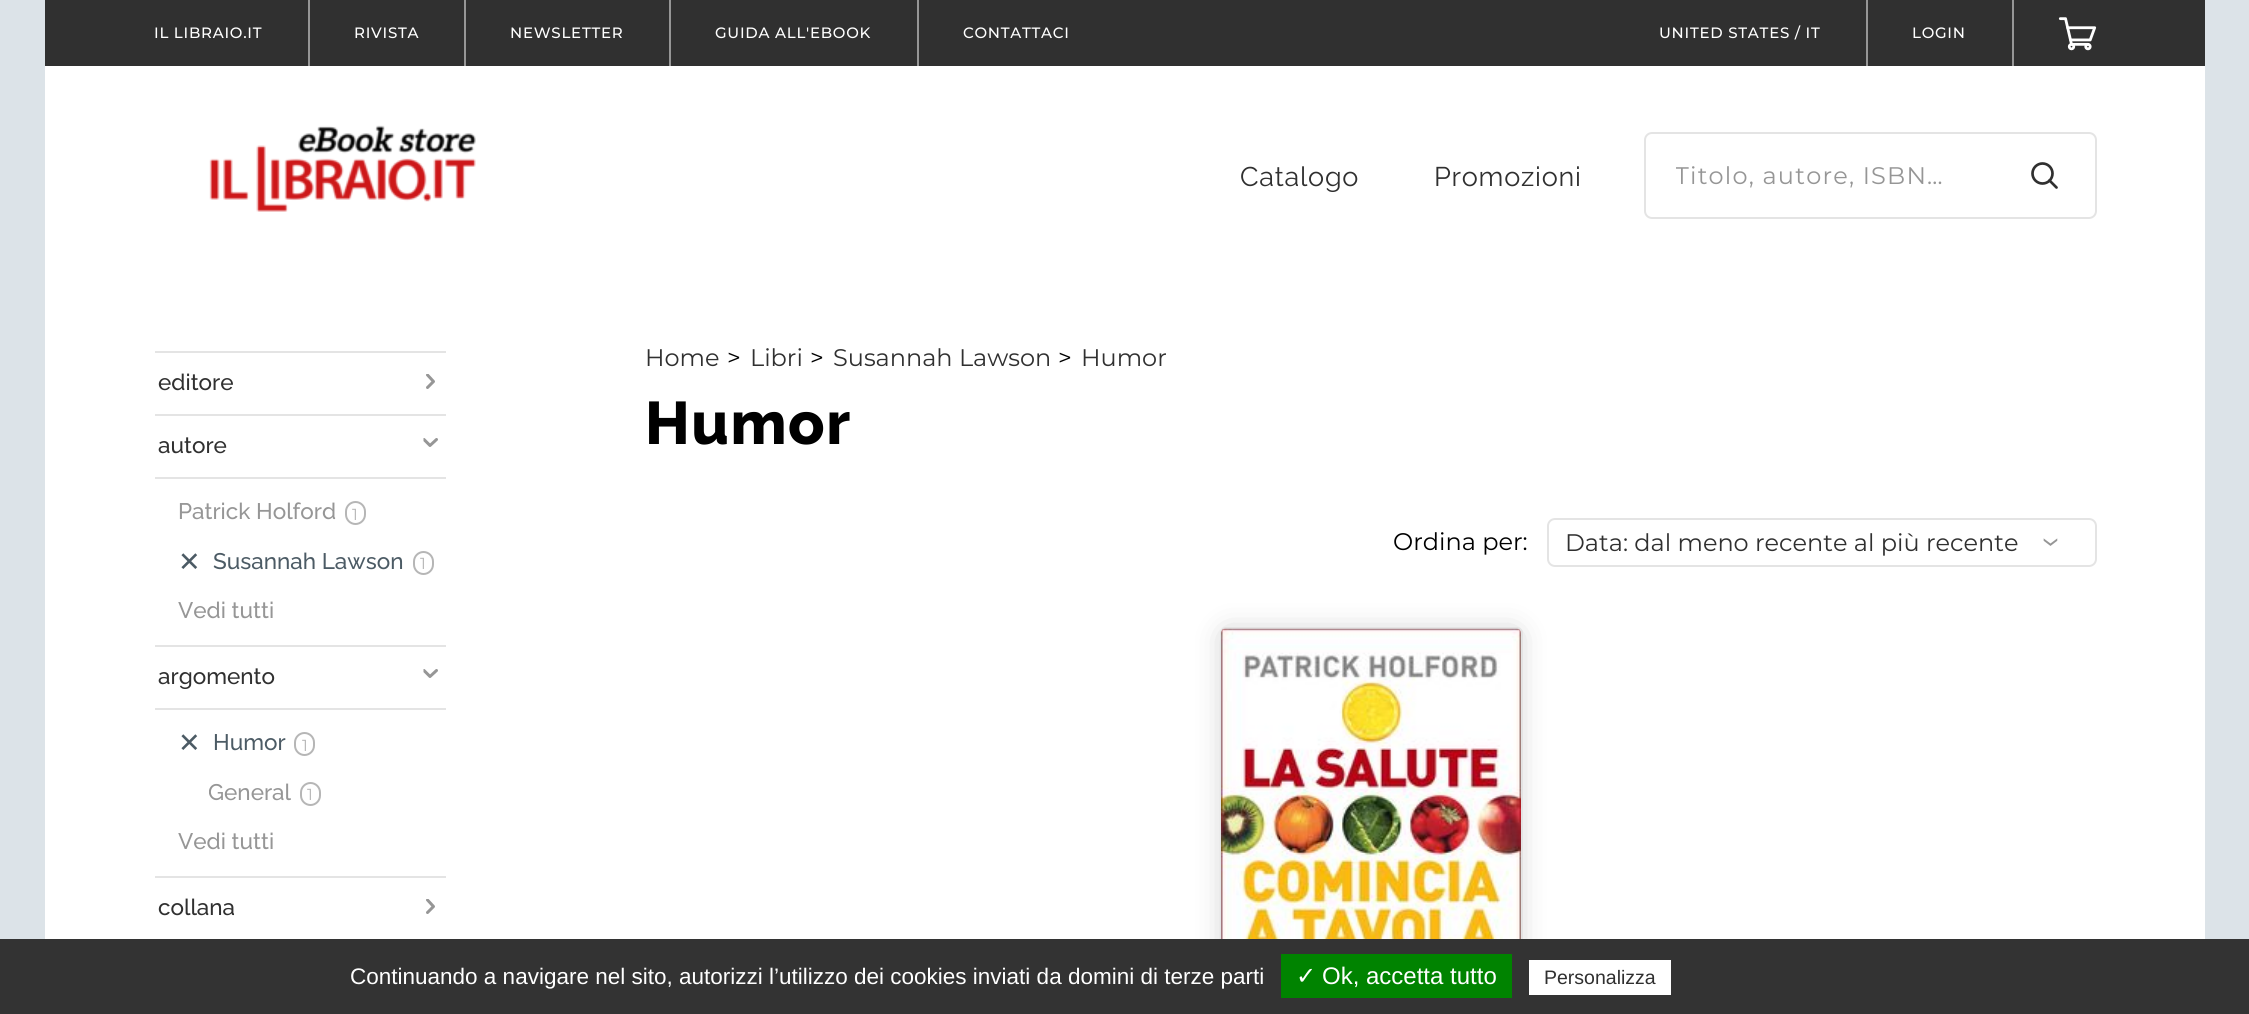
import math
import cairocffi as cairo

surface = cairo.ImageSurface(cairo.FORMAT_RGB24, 2249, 1014)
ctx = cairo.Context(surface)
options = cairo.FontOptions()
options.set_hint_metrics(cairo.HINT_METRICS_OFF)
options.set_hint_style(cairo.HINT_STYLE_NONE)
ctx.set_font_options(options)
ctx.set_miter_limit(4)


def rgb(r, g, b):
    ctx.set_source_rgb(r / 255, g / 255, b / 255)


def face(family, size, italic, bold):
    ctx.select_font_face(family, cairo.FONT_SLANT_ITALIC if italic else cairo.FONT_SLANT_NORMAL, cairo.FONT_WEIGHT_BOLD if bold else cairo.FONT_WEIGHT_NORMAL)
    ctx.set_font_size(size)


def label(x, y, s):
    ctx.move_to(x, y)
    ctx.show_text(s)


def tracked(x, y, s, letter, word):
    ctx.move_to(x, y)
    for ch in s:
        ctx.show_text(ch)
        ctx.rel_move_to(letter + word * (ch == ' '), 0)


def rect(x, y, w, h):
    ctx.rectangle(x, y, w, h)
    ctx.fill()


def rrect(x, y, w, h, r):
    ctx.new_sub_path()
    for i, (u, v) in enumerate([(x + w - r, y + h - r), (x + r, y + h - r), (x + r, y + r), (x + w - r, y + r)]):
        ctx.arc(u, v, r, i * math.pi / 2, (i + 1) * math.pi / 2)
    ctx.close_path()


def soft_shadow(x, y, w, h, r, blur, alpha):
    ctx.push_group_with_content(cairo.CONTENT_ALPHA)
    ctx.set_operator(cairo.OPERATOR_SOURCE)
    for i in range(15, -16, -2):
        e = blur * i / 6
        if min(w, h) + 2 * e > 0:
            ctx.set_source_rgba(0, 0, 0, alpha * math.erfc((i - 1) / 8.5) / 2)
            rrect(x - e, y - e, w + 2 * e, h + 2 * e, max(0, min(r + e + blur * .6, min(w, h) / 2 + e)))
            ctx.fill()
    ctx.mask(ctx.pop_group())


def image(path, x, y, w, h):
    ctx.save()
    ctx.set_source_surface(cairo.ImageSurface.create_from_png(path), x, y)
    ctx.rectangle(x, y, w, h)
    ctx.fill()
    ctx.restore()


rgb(220, 227, 232)
ctx.paint()
rgb(255, 255, 255)
rect(45, 66, 2160, 873)
rgb(48, 48, 48)
rect(45, 0, 2160, 66)
face('Montserrat Medium', 15, 0, 0)
rgb(255, 255, 255)
tracked(154, 38, 'IL LIBRAIO.IT', 0.75, 0)
rgb(150, 150, 150)
rect(308, 0, 2, 66)
rgb(255, 255, 255)
tracked(354, 38, 'RIVISTA', 0.75, 0)
rgb(150, 150, 150)
rect(464, 0, 2, 66)
rgb(255, 255, 255)
tracked(510, 38, 'NEWSLETTER', 0.75, 0)
rgb(150, 150, 150)
rect(669, 0, 2, 66)
rgb(255, 255, 255)
tracked(715, 38, 'GUIDA ALL\'EBOOK', 0.75, 0)
rgb(150, 150, 150)
rect(917, 0, 2, 66)
rgb(255, 255, 255)
tracked(963, 38, 'CONTATTACI', 0.75, 0)
tracked(1659, 38, 'UNITED STATES / IT', 0.75, 0)
rgb(150, 150, 150)
rect(1866, 0, 2, 66)
rgb(255, 255, 255)
tracked(1912, 38, 'LOGIN', 0.75, 0)
rgb(150, 150, 150)
rect(2012, 0, 2, 66)
image('image0.png', 2058, 17, 39, 34)
image('image1.png', 209, 125, 267, 87)
face('Raleway', 27, 0, 0)
rgb(48, 48, 48)
tracked(1240, 186, 'Catalogo', 0.75, 0)
tracked(1434, 186, 'Promozioni', 0.75, 0)
rrect(1645, 133, 451, 85, 7)
rgb(228, 228, 228)
ctx.stroke()
ctx.save()
ctx.rectangle(1676, 162, 330, 29)
ctx.clip()
face('Montserrat', 24, 0, 0)
rgb(150, 150, 150)
tracked(1675, 184, 'Titolo, autore, ISBN…', 1.2, 0)
ctx.restore()
ctx.new_path()
ctx.arc(2042.5, 173.5, 10, 0, 2 * math.pi)
rgb(48, 48, 48)
ctx.set_line_width(2.7)
ctx.stroke()
ctx.new_path()
ctx.move_to(2056.5, 187.5)
ctx.line_to(2049.5, 180.5)
ctx.set_line_cap(cairo.LINE_CAP_ROUND)
ctx.set_line_join(cairo.LINE_JOIN_ROUND)
ctx.stroke()
rgb(228, 228, 228)
rect(155, 351, 291, 2)
rect(155, 414, 291, 2)
face('Raleway Medium', 22.5, 0, 0)
rgb(48, 48, 48)
label(158, 390, 'editore')
ctx.save()
ctx.rectangle(423, 374, 15, 15)
ctx.clip()
ctx.new_path()
ctx.move_to(427.5, 375)
ctx.line_to(433.5, 381.5)
ctx.line_to(427.5, 387.5)
rgb(150, 150, 150)
ctx.set_line_width(3)
ctx.stroke()
ctx.restore()
rgb(228, 228, 228)
rect(155, 477, 291, 2)
rgb(48, 48, 48)
label(158, 453, 'autore')
ctx.save()
ctx.new_path()
ctx.move_to(438.5, 436)
ctx.line_to(438.5, 451)
ctx.line_to(423.5, 451)
ctx.line_to(423.5, 436)
ctx.close_path()
ctx.clip()
ctx.new_path()
ctx.move_to(436.5, 439.5)
ctx.line_to(430, 445.5)
ctx.line_to(424, 439.5)
rgb(150, 150, 150)
ctx.set_line_width(3)
ctx.stroke()
ctx.restore()
rgb(228, 228, 228)
rect(155, 645, 291, 2)
rgb(150, 150, 150)
label(178, 519, 'Patrick Holford')
rrect(346, 502, 19, 22, 9.5)
rgb(182, 182, 182)
ctx.set_line_width(2)
ctx.set_line_cap(cairo.LINE_CAP_BUTT)
ctx.set_line_join(cairo.LINE_JOIN_MITER)
ctx.stroke()
face('Montserrat', 16, 0, 0)
label(352, 520, '1')
face('DejaVu Sans', 27, 0, 0)
rgb(76, 91, 101)
label(178, 571, '✕')
face('Raleway Medium', 22.5, 0, 0)
label(213, 569, 'Susannah Lawson')
rrect(414, 552, 19, 22, 9.5)
rgb(182, 182, 182)
ctx.stroke()
face('Montserrat', 16, 0, 0)
label(420, 569, '1')
face('Raleway Medium', 22.5, 0, 0)
rgb(150, 150, 150)
label(178, 618, 'Vedi tutti')
rgb(228, 228, 228)
rect(155, 708, 291, 2)
rgb(48, 48, 48)
label(158, 684, 'argomento')
ctx.save()
ctx.new_path()
ctx.move_to(438.5, 667)
ctx.line_to(438.5, 682)
ctx.line_to(423.5, 682)
ctx.line_to(423.5, 667)
ctx.close_path()
ctx.clip()
ctx.new_path()
ctx.move_to(436.5, 670.5)
ctx.line_to(430, 676.5)
ctx.line_to(424, 670.5)
rgb(150, 150, 150)
ctx.set_line_width(3)
ctx.set_line_cap(cairo.LINE_CAP_ROUND)
ctx.set_line_join(cairo.LINE_JOIN_ROUND)
ctx.stroke()
ctx.restore()
rgb(228, 228, 228)
rect(155, 876, 291, 2)
face('DejaVu Sans', 27, 0, 0)
rgb(76, 91, 101)
label(178, 752, '✕')
face('Raleway Medium', 22.5, 0, 0)
label(213, 750, 'Humor')
rrect(295, 733, 19, 22, 9.5)
rgb(182, 182, 182)
ctx.stroke()
face('Montserrat', 16, 0, 0)
label(302, 751, '1')
ctx.save()
ctx.rectangle(209, 780, 82, 26)
ctx.clip()
face('Raleway Medium', 22.5, 0, 0)
rgb(150, 150, 150)
label(208, 800, 'General')
ctx.restore()
rrect(301, 783, 19, 22, 9.5)
ctx.stroke()
label(307, 800, '1')
face('Raleway Medium', 22.5, 0, 0)
rgb(150, 150, 150)
label(178, 849, 'Vedi tutti')
rgb(48, 48, 48)
label(158, 915, 'collana')
ctx.save()
ctx.rectangle(423, 899, 15, 15)
ctx.clip()
ctx.new_path()
ctx.move_to(427.5, 900)
ctx.line_to(433.5, 906.5)
ctx.line_to(427.5, 912.5)
rgb(150, 150, 150)
ctx.set_line_width(3)
ctx.set_line_cap(cairo.LINE_CAP_ROUND)
ctx.set_line_join(cairo.LINE_JOIN_ROUND)
ctx.stroke()
ctx.restore()
face('Montserrat', 24, 0, 0)
label(645, 366, 'Home')
rgb(0, 0, 0)
label(727, 366, '>')
rgb(48, 48, 48)
label(750, 366, 'Libri')
rgb(0, 0, 0)
label(810, 366, '>')
rgb(48, 48, 48)
label(833, 366, 'Susannah Lawson')
rgb(0, 0, 0)
label(1058, 366, '>')
rgb(48, 48, 48)
label(1081, 366, 'Humor')
face('Raleway ExtraBold', 60, 0, 0)
rgb(0, 0, 0)
tracked(645, 444, 'Humor', 1.5, 0)
face('Montserrat', 24, 0, 0)
label(1393, 550, 'Ordina per:')
rrect(1548, 519, 548, 47, 7)
rgb(228, 228, 228)
ctx.stroke()
rgb(48, 48, 48)
label(1565, 551, 'Data: dal meno recente al più recente')
face('Montserrat', 36, 0, 0)
rgb(150, 150, 150)
ctx.save()
ctx.translate(2041, 537)
ctx.rotate(90 * math.pi / 180)
label(0, 0, '›')
ctx.restore()
rgb(0, 0, 0)
soft_shadow(1227, 635, 288, 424, 0, 15, 0.25)
rrect(1221, 628, 301, 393, 5)
rgb(228, 228, 228)
ctx.stroke()
image('image2.png', 1221, 628, 300, 311)
rgb(51, 51, 51)
rect(0, 939, 2249, 75)
face('Liberation Sans', 22.5, 0, 0)
rgb(255, 255, 255)
label(350, 984, 'Continuando a navigare nel sito, autorizzi l’utilizzo dei cookies inviati da domini di terze parti')
rgb(0, 131, 0)
rect(1281, 954, 231, 44)
face('DejaVu Sans', 24, 0, 0)
rgb(255, 255, 255)
label(1296, 984, '✓')
face('Liberation Sans', 24, 0, 0)
label(1322, 984, 'Ok, accetta tutto')
rect(1529, 960, 142, 35)
face('Liberation Sans', 19.5, 0, 0)
rgb(48, 48, 48)
label(1544, 984, 'Personalizza')
surface.write_to_png('render.png')
